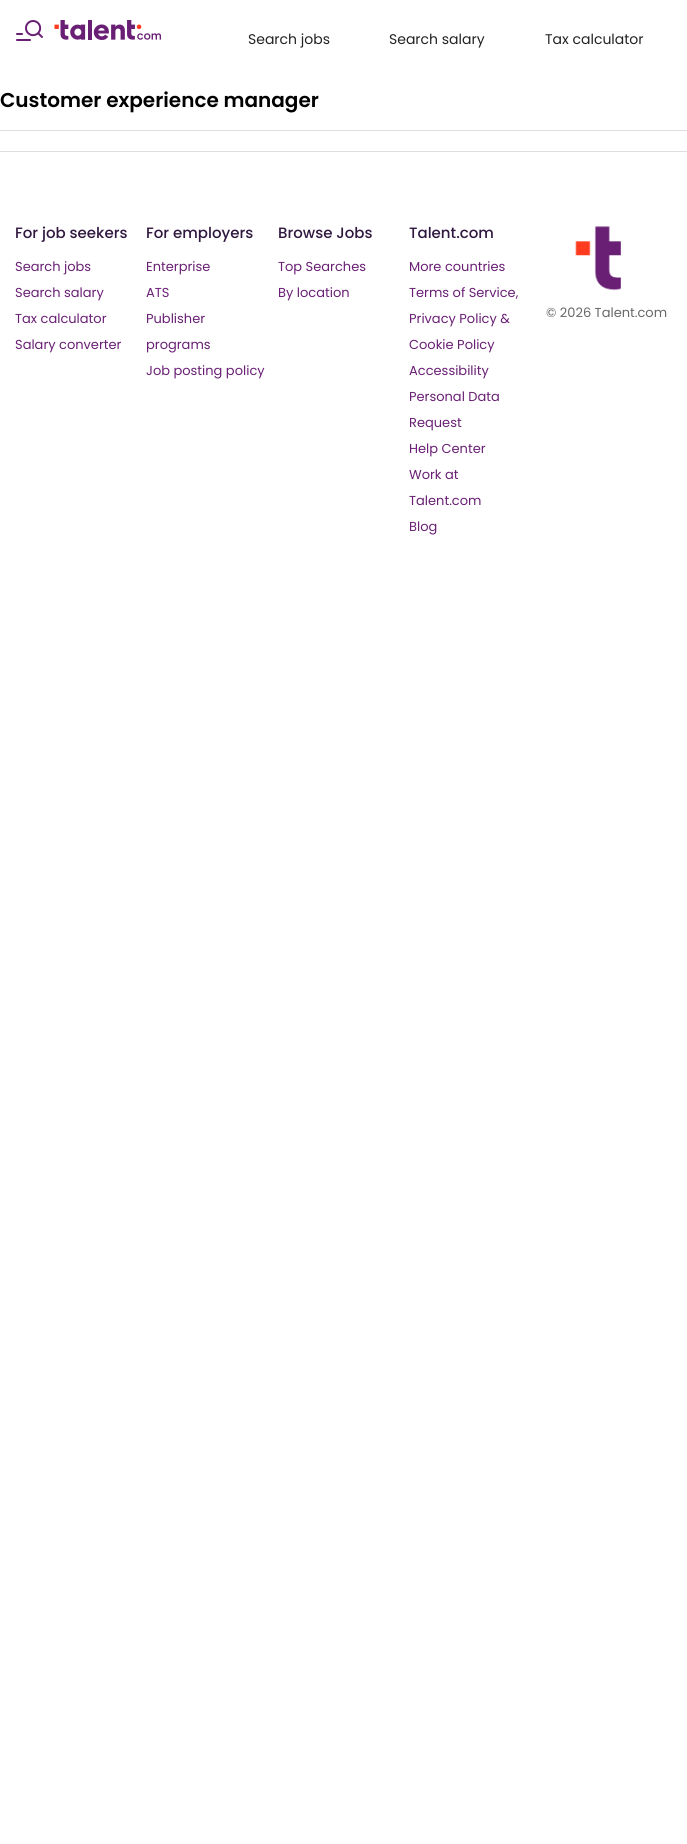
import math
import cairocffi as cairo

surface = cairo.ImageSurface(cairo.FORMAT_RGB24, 687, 1844)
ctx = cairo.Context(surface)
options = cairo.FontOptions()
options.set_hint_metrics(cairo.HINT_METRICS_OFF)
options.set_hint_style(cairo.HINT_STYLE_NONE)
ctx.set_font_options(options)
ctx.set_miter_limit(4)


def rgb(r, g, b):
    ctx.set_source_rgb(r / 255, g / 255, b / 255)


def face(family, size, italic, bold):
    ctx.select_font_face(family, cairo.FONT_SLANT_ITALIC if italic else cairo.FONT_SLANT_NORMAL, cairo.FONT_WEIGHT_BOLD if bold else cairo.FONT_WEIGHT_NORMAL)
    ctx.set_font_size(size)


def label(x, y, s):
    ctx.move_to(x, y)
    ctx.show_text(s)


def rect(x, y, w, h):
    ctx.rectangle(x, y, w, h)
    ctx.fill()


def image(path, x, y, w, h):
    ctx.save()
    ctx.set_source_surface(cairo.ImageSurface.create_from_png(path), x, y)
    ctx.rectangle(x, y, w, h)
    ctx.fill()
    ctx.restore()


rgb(255, 255, 255)
ctx.paint()
image('image0.png', 16, 20, 27, 21)
image('image1.png', 54, 20, 107, 20)
face('Poppins', 14, 0, 0)
rgb(34, 34, 34)
label(248, 44, 'Search jobs')
label(389, 44, 'Search salary')
label(545, 44, 'Tax calculator')
face('Poppins SemiBold', 20, 0, 0)
rgb(0, 0, 0)
label(0, 107, 'Customer experience manager')
rgb(225, 220, 226)
rect(0, 130, 687, 1)
rect(0, 151, 687, 1)
face('Poppins Medium', 15, 0, 0)
rgb(48, 24, 63)
label(15, 238, 'For job seekers')
face('Poppins', 13, 0, 0)
rgb(105, 31, 116)
label(15, 271, 'Search jobs')
label(15, 297, 'Search salary')
label(15, 323, 'Tax calculator')
label(15, 349, 'Salary converter')
face('Poppins Medium', 15, 0, 0)
rgb(48, 24, 63)
label(146, 238, 'For employers')
face('Poppins', 13, 0, 0)
rgb(105, 31, 116)
label(146, 271, 'Enterprise')
label(146, 297, 'ATS')
label(146, 323, 'Publisher')
label(146, 349, 'programs')
label(146, 375, 'Job posting policy')
face('Poppins Medium', 15, 0, 0)
rgb(48, 24, 63)
label(278, 238, 'Browse Jobs')
face('Poppins', 13, 0, 0)
rgb(105, 31, 116)
label(278, 271, 'Top Searches')
label(278, 297, 'By location')
face('Poppins Medium', 15, 0, 0)
rgb(48, 24, 63)
label(409, 238, 'Talent.com')
face('Poppins', 13, 0, 0)
rgb(105, 31, 116)
label(409, 271, 'More countries')
label(409, 297, 'Terms of Service,')
label(409, 323, 'Privacy Policy &')
label(409, 349, 'Cookie Policy')
label(409, 375, 'Accessibility')
label(409, 401, 'Personal Data')
label(409, 427, 'Request')
label(409, 453, 'Help Center')
label(409, 479, 'Work at')
label(409, 505, 'Talent.com')
label(409, 531, 'Blog')
image('image2.png', 575, 226, 46, 65)
rgb(103, 103, 103)
label(546, 317, '© 2026 Talent.com')
surface.write_to_png('render.png')
